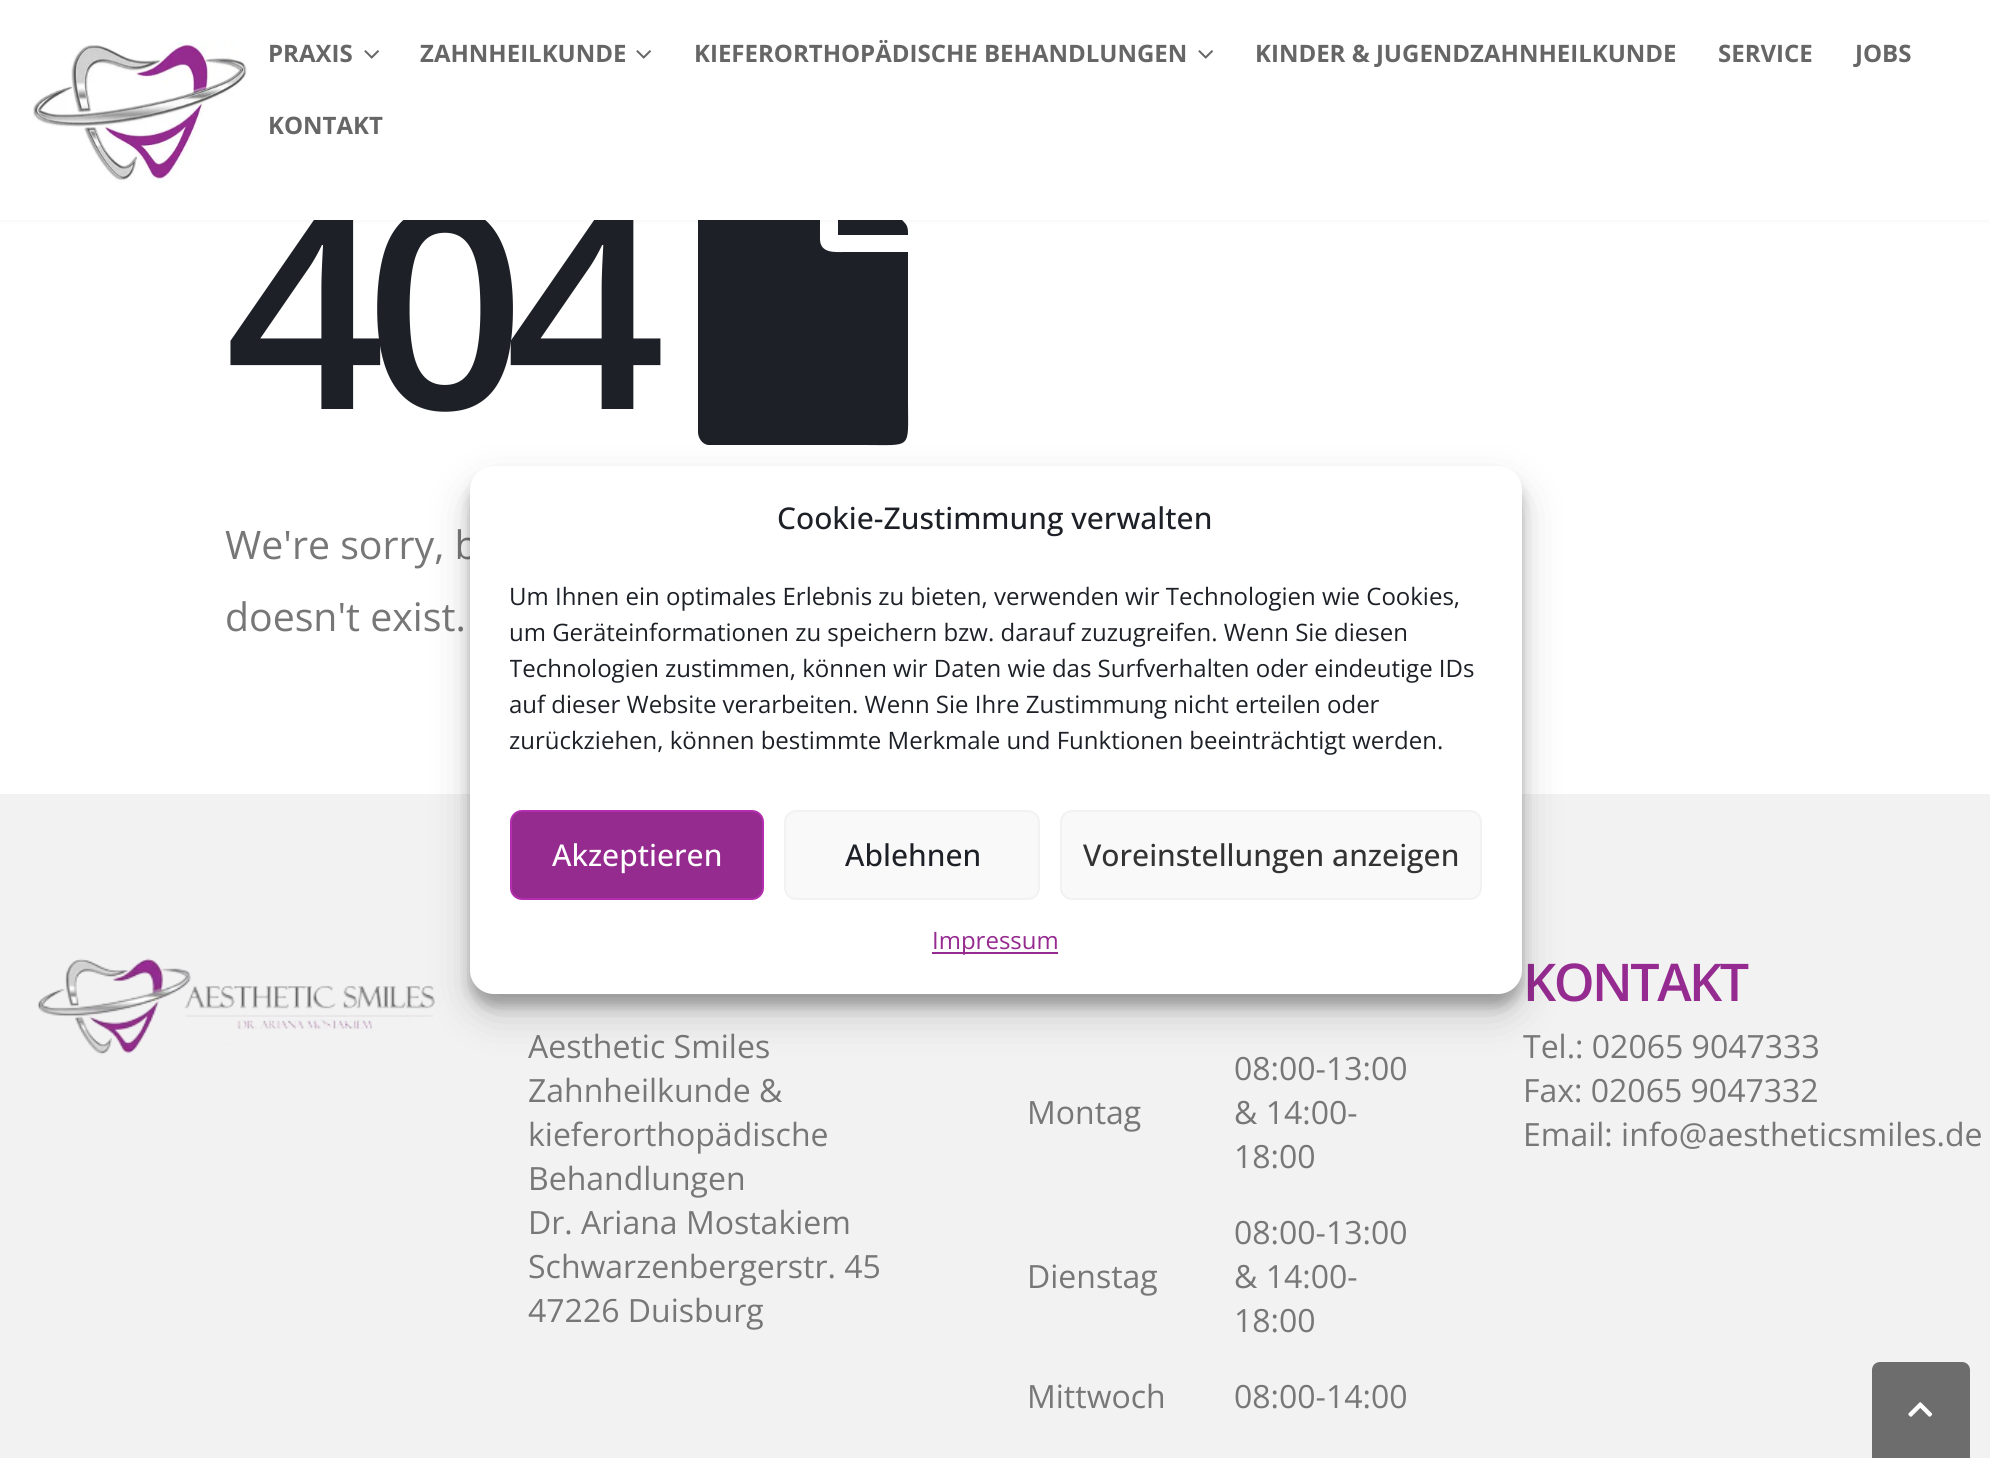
import math
import cairocffi as cairo

surface = cairo.ImageSurface(cairo.FORMAT_RGB24, 1990, 1458)
ctx = cairo.Context(surface)
options = cairo.FontOptions()
options.set_hint_metrics(cairo.HINT_METRICS_OFF)
options.set_hint_style(cairo.HINT_STYLE_NONE)
ctx.set_font_options(options)
ctx.set_miter_limit(4)


def rgb(r, g, b):
    ctx.set_source_rgb(r / 255, g / 255, b / 255)


def face(family, size, italic, bold):
    ctx.select_font_face(family, cairo.FONT_SLANT_ITALIC if italic else cairo.FONT_SLANT_NORMAL, cairo.FONT_WEIGHT_BOLD if bold else cairo.FONT_WEIGHT_NORMAL)
    ctx.set_font_size(size)


def label(x, y, s):
    ctx.move_to(x, y)
    ctx.show_text(s)


def tracked(x, y, s, letter, word):
    ctx.move_to(x, y)
    for ch in s:
        ctx.show_text(ch)
        ctx.rel_move_to(letter + word * (ch == ' '), 0)


def rect(x, y, w, h):
    ctx.rectangle(x, y, w, h)
    ctx.fill()


def rrect(x, y, w, h, r):
    ctx.new_sub_path()
    for i, (u, v) in enumerate([(x + w - r, y + h - r), (x + r, y + h - r), (x + r, y + r), (x + w - r, y + r)]):
        ctx.arc(u, v, r, i * math.pi / 2, (i + 1) * math.pi / 2)
    ctx.close_path()


def soft_shadow(x, y, w, h, r, blur, alpha):
    ctx.push_group_with_content(cairo.CONTENT_ALPHA)
    ctx.set_operator(cairo.OPERATOR_SOURCE)
    for i in range(15, -16, -2):
        e = blur * i / 6
        if min(w, h) + 2 * e > 0:
            ctx.set_source_rgba(0, 0, 0, alpha * math.erfc((i - 1) / 8.5) / 2)
            rrect(x - e, y - e, w + 2 * e, h + 2 * e, max(0, min(r + e + blur * .6, min(w, h) / 2 + e)))
            ctx.fill()
    ctx.mask(ctx.pop_group())


def image(path, x, y, w, h):
    ctx.save()
    ctx.set_source_surface(cairo.ImageSurface.create_from_png(path), x, y)
    ctx.rectangle(x, y, w, h)
    ctx.fill()
    ctx.restore()


rgb(255, 255, 255)
ctx.paint()
rgb(29, 33, 39)
ctx.new_path()
ctx.move_to(820, 239)
ctx.curve_to(820, 254, 836, 252, 846, 252)
ctx.line_to(908, 252)
ctx.line_to(908, 402)
ctx.curve_to(908, 450, 913, 445, 864, 445)
ctx.line_to(708, 445)
ctx.curve_to(702, 444, 698, 438, 698, 432)
ctx.line_to(698, 178)
ctx.curve_to(698, 172, 702, 166, 708, 165)
ctx.line_to(820, 165)
ctx.close_path()
ctx.move_to(908, 232)
ctx.line_to(908, 235)
ctx.line_to(838, 235)
ctx.line_to(838, 165)
ctx.line_to(841, 165)
ctx.curve_to(845, 165, 848, 166, 851, 169)
ctx.line_to(904, 222)
ctx.curve_to(907, 225, 908, 228, 908, 232)
ctx.close_path()
ctx.fill()
rgb(0, 0, 0)
soft_shadow(0, 0, 1990, 220, 0, 3, 0.06)
face('Open Sans SemiBold', 280, 0, 0)
rgb(29, 33, 39)
tracked(225, 409, '404', -20, 0)
rgb(255, 255, 255)
rect(0, 0, 1990, 220)
image('image0.png', 33, 41, 214, 142)
face('Open Sans', 24, 0, 1)
rgb(102, 102, 102)
label(268, 62, 'PRAXIS')
image('image1.png', 364, 50, 15, 9)
label(420, 62, 'ZAHNHEILKUNDE')
image('image1.png', 636, 50, 15, 9)
label(694, 62, 'KIEFERORTHOPÄDISCHE BEHANDLUNGEN')
image('image1.png', 1198, 50, 15, 9)
label(1255, 62, 'KINDER & JUGENDZAHNHEILKUNDE')
label(1718, 62, 'SERVICE')
label(1855, 62, 'JOBS')
label(268, 134, 'KONTAKT')
face('Open Sans', 39.25, 0, 0)
rgb(119, 119, 119)
label(225, 559, 'We\'re sorry, b')
label(225, 631, 'doesn\'t exist.')
rgb(242, 242, 242)
rect(0, 794, 1990, 664)
image('image2.png', 37, 958, 398, 97)
face('Open Sans', 32, 0, 0)
rgb(119, 119, 119)
label(528, 1058, 'Aesthetic Smiles')
label(528, 1102, 'Zahnheilkunde &')
label(528, 1146, 'kieferorthopädische')
label(528, 1190, 'Behandlungen')
label(528, 1234, 'Dr. Ariana Mostakiem')
label(528, 1278, 'Schwarzenbergerstr. 45')
label(528, 1322, '47226 Duisburg')
label(1027, 1124, 'Montag')
label(1234, 1080, '08:00-13:00')
label(1234, 1124, '& 14:00-')
label(1234, 1168, '18:00')
label(1027, 1288, 'Dienstag')
label(1234, 1244, '08:00-13:00')
label(1234, 1288, '& 14:00-')
label(1234, 1332, '18:00')
label(1027, 1408, 'Mittwoch')
label(1234, 1408, '08:00-14:00')
face('Open Sans SemiBold', 52, 0, 0)
rgb(149, 43, 144)
tracked(1523, 1001, 'KONTAKT', -2.5, 0)
face('Open Sans', 32, 0, 0)
rgb(119, 119, 119)
label(1523, 1058, 'Tel.: 02065 9047333')
label(1523, 1102, 'Fax: 02065 9047332')
label(1523, 1146, 'Email: info@aestheticsmiles.de')
rgb(0, 0, 0)
soft_shadow(470, 478, 1052, 528, 24, 6, 0.23)
soft_shadow(470, 486, 1052, 528, 24, 20, 0.19)
rgb(255, 255, 255)
rrect(470, 466, 1052, 528, 24)
ctx.fill()
face('Open Sans Medium', 30, 0, 0)
rgb(29, 33, 39)
label(777, 529, 'Cookie-Zustimmung verwalten')
face('Open Sans', 24, 0, 0)
label(509, 605, 'Um Ihnen ein optimales Erlebnis zu bieten, verwenden wir Technologien wie Cookies,')
label(509, 641, 'um Geräteinformationen zu speichern bzw. darauf zuzugreifen. Wenn Sie diesen')
ctx.save()
ctx.rectangle(510, 580, 972, 190)
ctx.clip()
label(509, 677, 'Technologien zustimmen, können wir Daten wie das Surfverhalten oder eindeutige IDs')
ctx.restore()
label(509, 713, 'auf dieser Website verarbeiten. Wenn Sie Ihre Zustimmung nicht erteilen oder')
label(509, 749, 'zurückziehen, können bestimmte Merkmale und Funktionen beeinträchtigt werden.')
rgb(150, 43, 143)
rrect(511, 811, 252, 88, 11)
ctx.fill_preserve()
rgb(178, 46, 174)
ctx.stroke()
face('Open Sans Medium', 30, 0, 0)
rgb(255, 255, 255)
label(552, 866, 'Akzeptieren')
rgb(249, 249, 249)
rrect(785, 811, 254, 88, 11)
ctx.fill_preserve()
rgb(242, 242, 242)
ctx.stroke()
rgb(29, 33, 39)
label(845, 866, 'Ablehnen')
rgb(249, 249, 249)
rrect(1061, 811, 420, 88, 11)
ctx.fill_preserve()
rgb(242, 242, 242)
ctx.stroke()
rgb(51, 51, 51)
label(1083, 866, 'Voreinstellungen anzeigen')
rgb(150, 43, 143)
rect(932, 952, 126, 2)
face('Open Sans', 24, 0, 0)
rgb(149, 43, 144)
label(932, 949, 'Impressum')
rgb(109, 109, 109)
ctx.new_path()
ctx.move_to(1880, 1362)
ctx.line_to(1962, 1362)
ctx.curve_to(1966.5, 1362, 1970, 1365.5, 1970, 1370)
ctx.line_to(1970, 1458)
ctx.line_to(1872, 1458)
ctx.line_to(1872, 1370)
ctx.curve_to(1872, 1365.5, 1875.5, 1362, 1880, 1362)
ctx.close_path()
ctx.fill()
image('image3.png', 1908, 1402, 25, 15)
surface.write_to_png('render.png')
